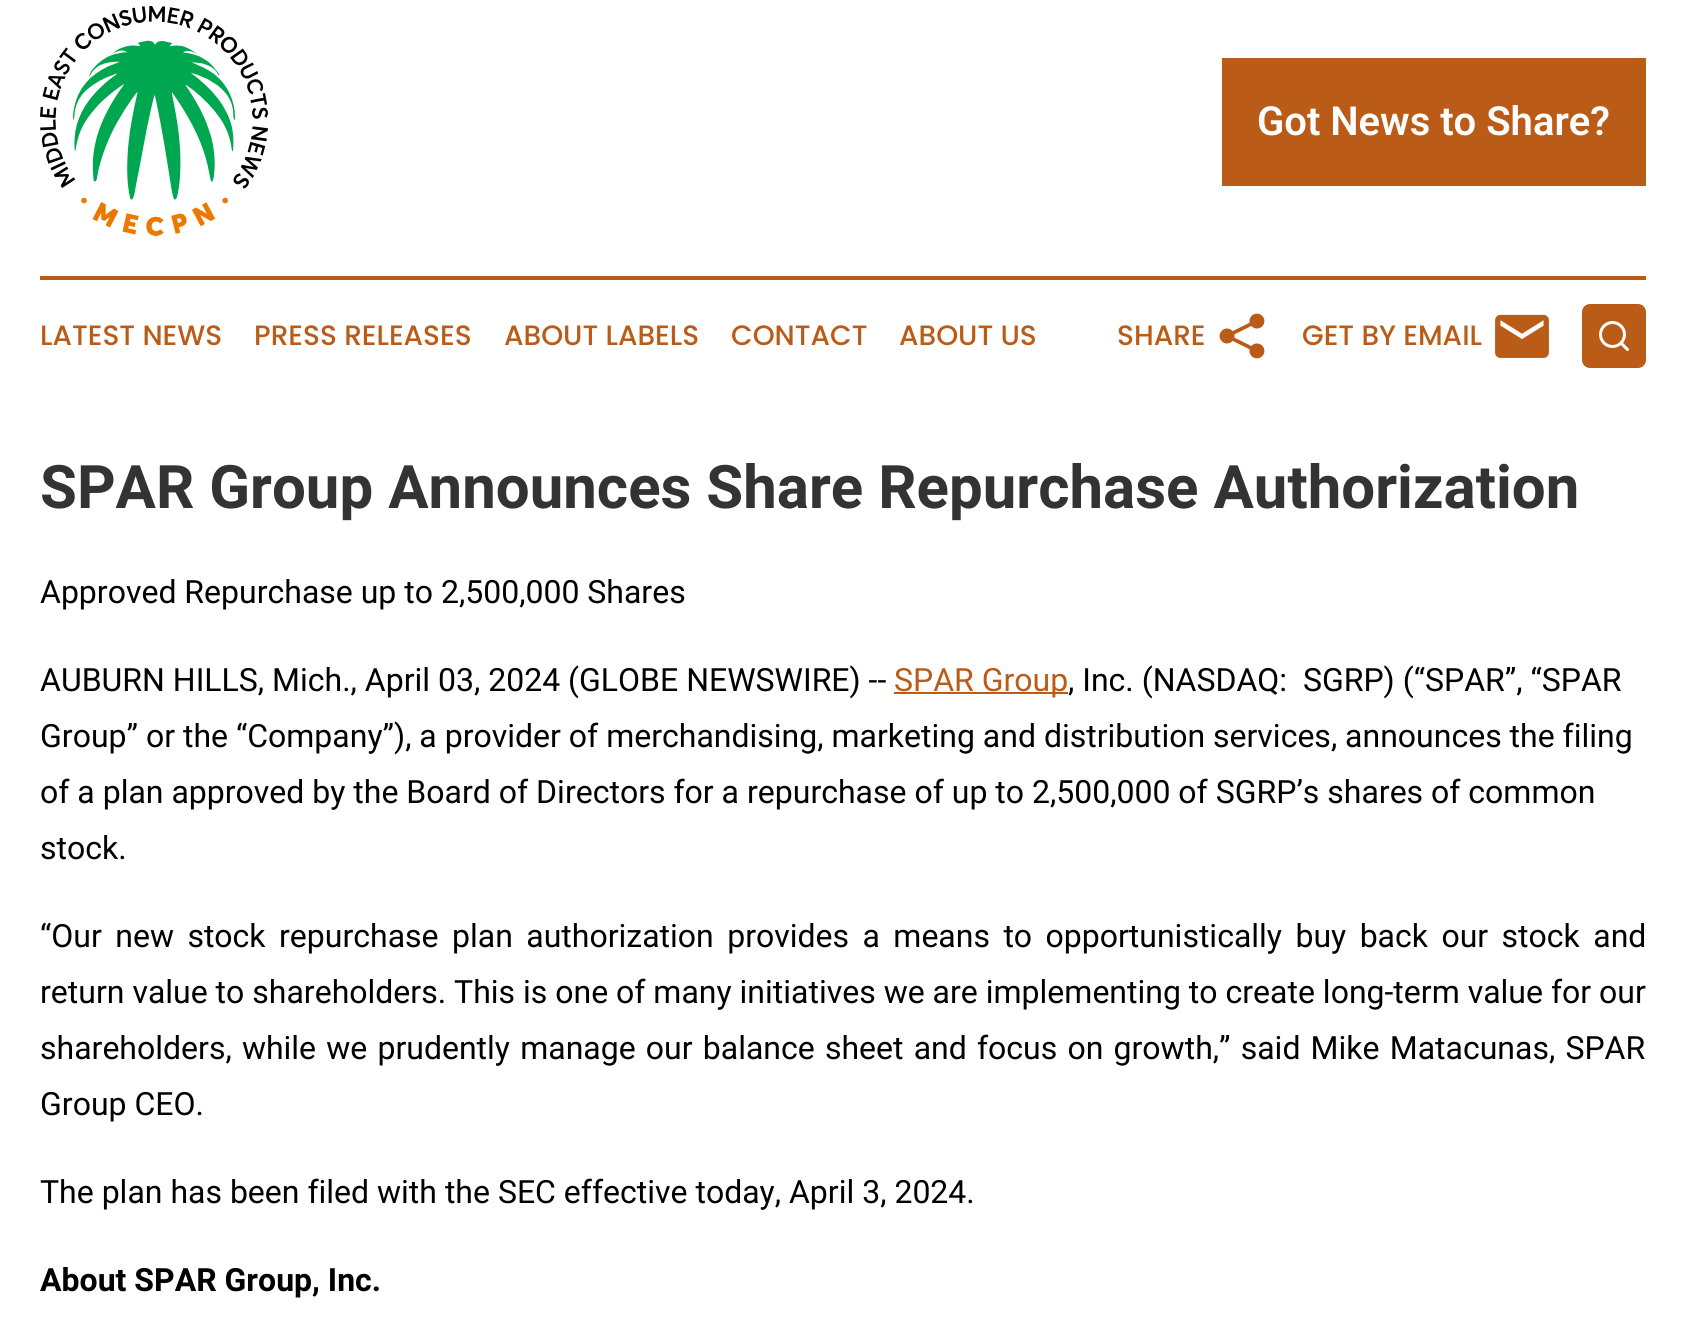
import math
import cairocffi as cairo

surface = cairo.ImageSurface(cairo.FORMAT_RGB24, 1686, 1338)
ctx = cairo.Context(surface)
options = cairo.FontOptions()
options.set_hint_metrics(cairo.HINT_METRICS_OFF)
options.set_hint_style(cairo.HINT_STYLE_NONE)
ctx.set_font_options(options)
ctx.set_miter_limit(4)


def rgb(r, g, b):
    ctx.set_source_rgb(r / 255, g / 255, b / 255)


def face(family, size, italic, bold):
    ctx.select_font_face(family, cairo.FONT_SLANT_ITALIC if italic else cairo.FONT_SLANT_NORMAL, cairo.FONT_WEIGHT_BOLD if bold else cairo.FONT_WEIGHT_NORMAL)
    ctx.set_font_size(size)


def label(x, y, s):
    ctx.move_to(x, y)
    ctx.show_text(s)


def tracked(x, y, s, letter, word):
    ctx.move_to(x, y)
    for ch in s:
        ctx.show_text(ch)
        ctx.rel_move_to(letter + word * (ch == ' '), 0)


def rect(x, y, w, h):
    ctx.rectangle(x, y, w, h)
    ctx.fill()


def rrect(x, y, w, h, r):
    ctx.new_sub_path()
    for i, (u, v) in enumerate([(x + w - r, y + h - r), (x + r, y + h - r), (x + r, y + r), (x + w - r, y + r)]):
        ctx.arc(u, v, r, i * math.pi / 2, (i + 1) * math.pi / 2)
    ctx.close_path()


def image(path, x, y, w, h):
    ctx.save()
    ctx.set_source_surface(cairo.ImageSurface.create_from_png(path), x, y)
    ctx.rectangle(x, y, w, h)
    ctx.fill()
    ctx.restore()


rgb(255, 255, 255)
ctx.paint()
image('image0.png', 40, 6, 228, 230)
rgb(186, 92, 23)
rect(1222, 58, 424, 128)
face('Roboto SemiBold', 40, 0, 0)
rgb(255, 255, 255)
label(1257, 135, 'Got News to Share?')
rgb(186, 92, 23)
rect(40, 276, 1606, 4)
face('Poppins Medium', 28, 0, 0)
label(40, 345, 'LATEST NEWS')
label(254, 345, 'PRESS RELEASES')
label(504, 345, 'ABOUT LABELS')
label(731, 345, 'CONTACT')
label(899, 345, 'ABOUT US')
label(1117, 345, 'SHARE')
image('image1.png', 1219, 313, 46, 46)
label(1302, 345, 'GET BY EMAIL')
image('image2.png', 1495, 314, 54, 44)
rrect(1582, 304, 64, 64, 8)
ctx.fill()
ctx.arc(1612.5, 334.5, 12, 0, 2 * math.pi)
rgb(255, 255, 255)
ctx.set_line_width(3)
ctx.stroke()
ctx.new_path()
ctx.move_to(1627.5, 349.5)
ctx.line_to(1621, 343)
ctx.set_line_cap(cairo.LINE_CAP_ROUND)
ctx.set_line_join(cairo.LINE_JOIN_ROUND)
ctx.stroke()
face('Roboto', 60, 0, 1)
rgb(51, 51, 51)
label(40, 508, 'SPAR Group Announces Share Repurchase Authorization')
face('Roboto', 32, 0, 0)
rgb(0, 0, 0)
label(40, 603, 'Approved Repurchase up to 2,500,000 Shares')
label(40, 691, 'AUBURN HILLS, Mich., April 03, 2024 (GLOBE NEWSWIRE) --')
rgb(186, 92, 23)
rect(894, 692, 174, 2)
label(894, 691, 'SPAR Group')
rgb(0, 0, 0)
label(1068, 691, ', Inc. (NASDAQ:  SGRP) (“SPAR”, “SPAR')
label(40, 747, 'Group” or the “Company”), a provider of merchandising, marketing and distribution services, announces the filing')
label(40, 803, 'of a plan approved by the Board of Directors for a repurchase of up to 2,500,000 of SGRP’s shares of common')
label(40, 859, 'stock.')
tracked(40, 947, '“Our new stock repurchase plan authorization provides a means to opportunistically buy back our stock and', 0, 5.5)
label(40, 1003, 'return value to shareholders. This is one of many initiatives we are implementing to create long-term value for our')
tracked(40, 1059, 'shareholders, while we prudently manage our balance sheet and focus on growth,” said Mike Matacunas, SPAR', 0, 2.25)
label(40, 1115, 'Group CEO.')
label(40, 1203, 'The plan has been filed with the SEC effective today, April 3, 2024.')
face('Roboto', 32, 0, 1)
label(40, 1291, 'About SPAR Group, Inc.')
surface.write_to_png('render.png')
